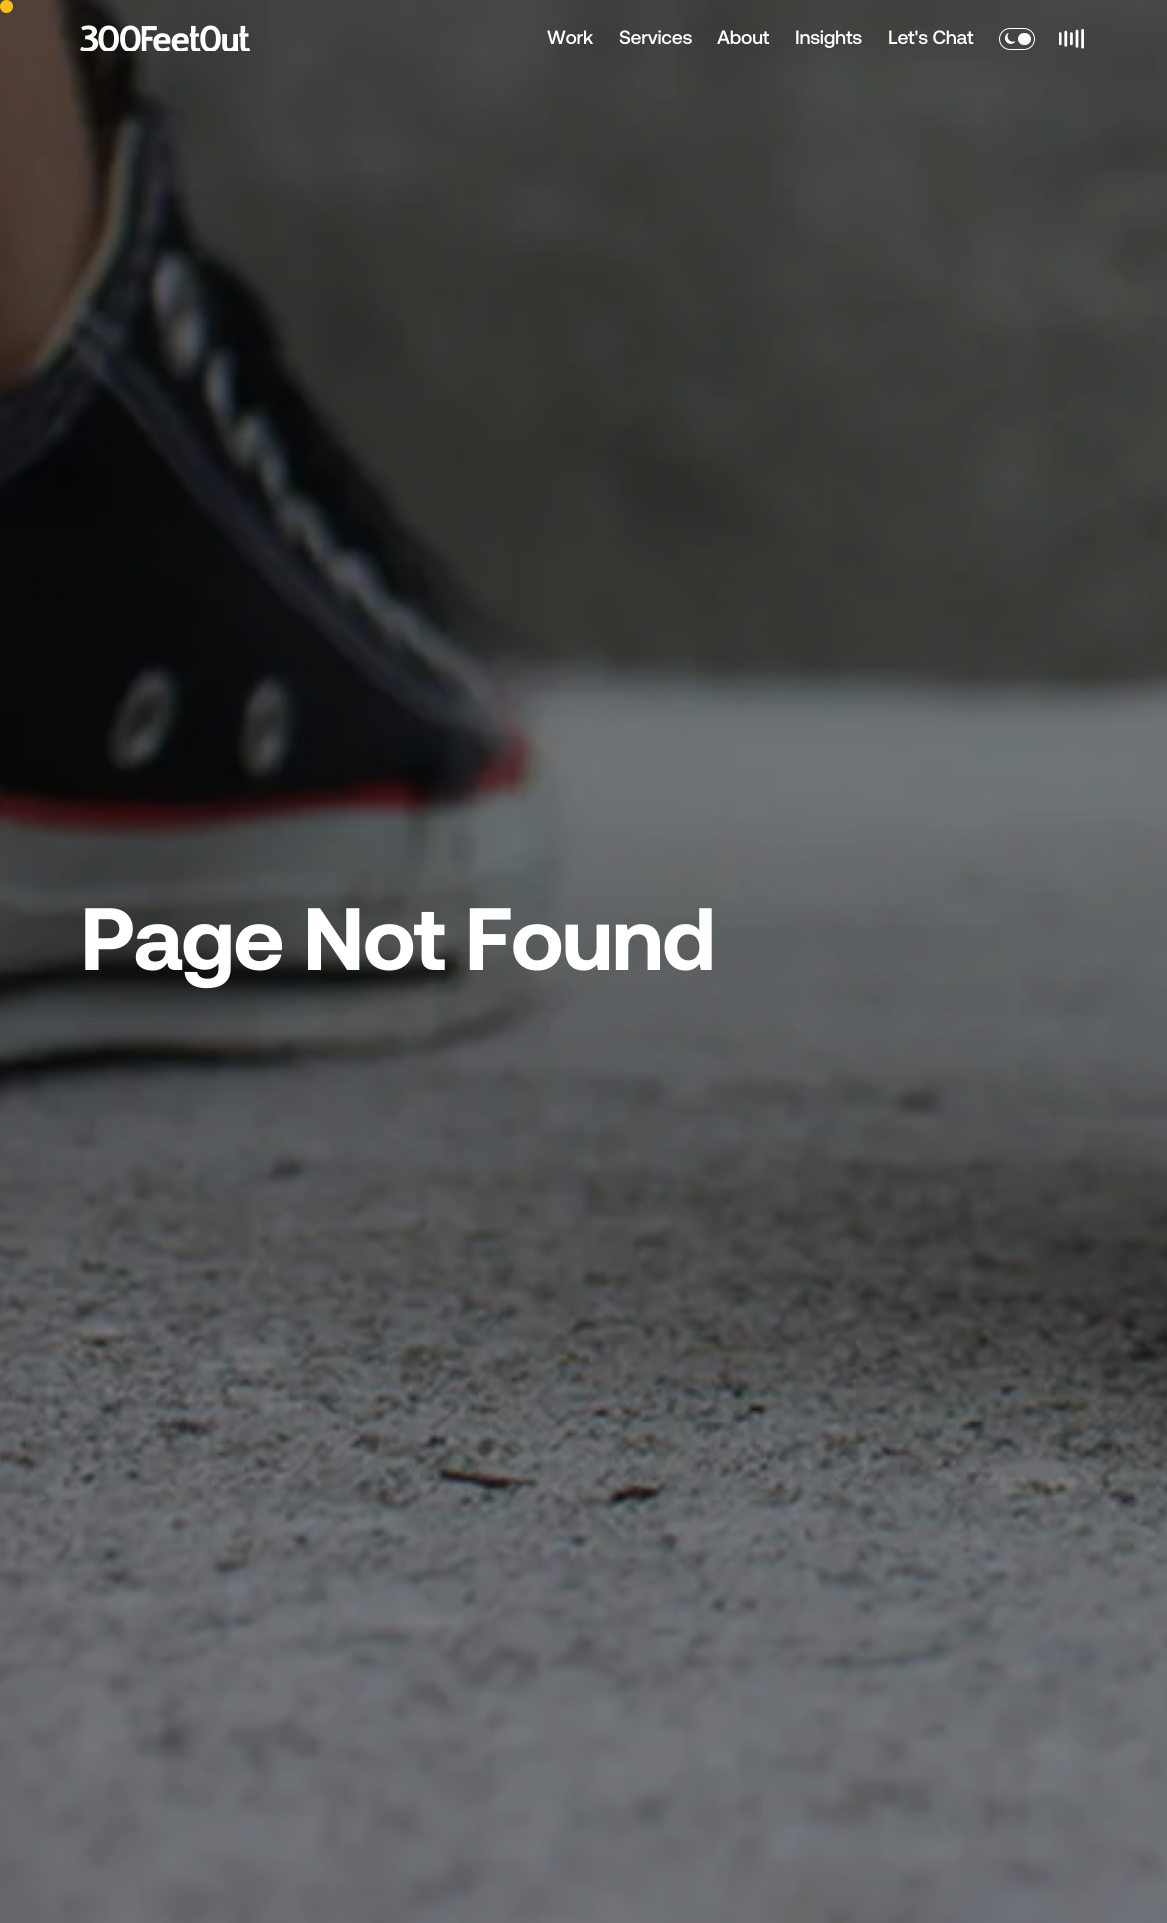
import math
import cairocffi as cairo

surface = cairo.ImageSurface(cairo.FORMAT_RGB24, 1167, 1923)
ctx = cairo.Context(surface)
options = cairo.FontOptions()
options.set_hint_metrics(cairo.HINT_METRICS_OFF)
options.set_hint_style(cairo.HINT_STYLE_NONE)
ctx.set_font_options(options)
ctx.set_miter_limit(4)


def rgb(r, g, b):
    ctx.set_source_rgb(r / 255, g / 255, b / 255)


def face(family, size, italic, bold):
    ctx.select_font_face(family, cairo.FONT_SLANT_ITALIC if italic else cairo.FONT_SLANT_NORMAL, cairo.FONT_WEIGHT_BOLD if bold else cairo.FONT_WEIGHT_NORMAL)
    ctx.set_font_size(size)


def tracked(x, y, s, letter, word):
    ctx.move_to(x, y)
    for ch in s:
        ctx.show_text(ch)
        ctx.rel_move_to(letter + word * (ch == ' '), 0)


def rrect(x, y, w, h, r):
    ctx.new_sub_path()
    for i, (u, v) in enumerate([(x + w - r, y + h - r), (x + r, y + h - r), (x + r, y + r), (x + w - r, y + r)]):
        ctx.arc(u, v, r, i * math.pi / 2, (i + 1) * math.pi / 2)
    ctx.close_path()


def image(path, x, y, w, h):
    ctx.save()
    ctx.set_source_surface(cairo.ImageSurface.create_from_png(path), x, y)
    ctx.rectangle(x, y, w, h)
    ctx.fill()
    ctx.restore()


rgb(0, 0, 0)
ctx.paint()
image('image3.png', 0, 0, 1167, 1923)
rgb(253, 193, 21)
ctx.arc(6.5, 6.5, 6.5, 0, 2 * math.pi)
ctx.fill()
image('image0.png', 80, 25, 170, 26)
face('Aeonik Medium', 19.25, 0, 0)
rgb(255, 255, 255)
tracked(547, 44, 'Work', -0.25, 0)
tracked(619, 44, 'Services', -0.25, 0)
tracked(717, 44, 'About', -0.25, 0)
tracked(795, 44, 'Insights', -0.25, 0)
tracked(888, 44, 'Let\'s Chat', -0.25, 0)
rrect(999.5, 28.5, 35, 21, 10.5)
ctx.set_line_width(1)
ctx.stroke()
image('image1.png', 1005, 33, 10, 11)
rrect(1018, 33, 13, 12, 6)
ctx.fill()
image('image2.png', 1059, 28, 25, 21)
face('Aeonik', 88.25, 0, 1)
tracked(80, 970, 'Page Not Found', -1.75, 0)
surface.write_to_png('render.png')
